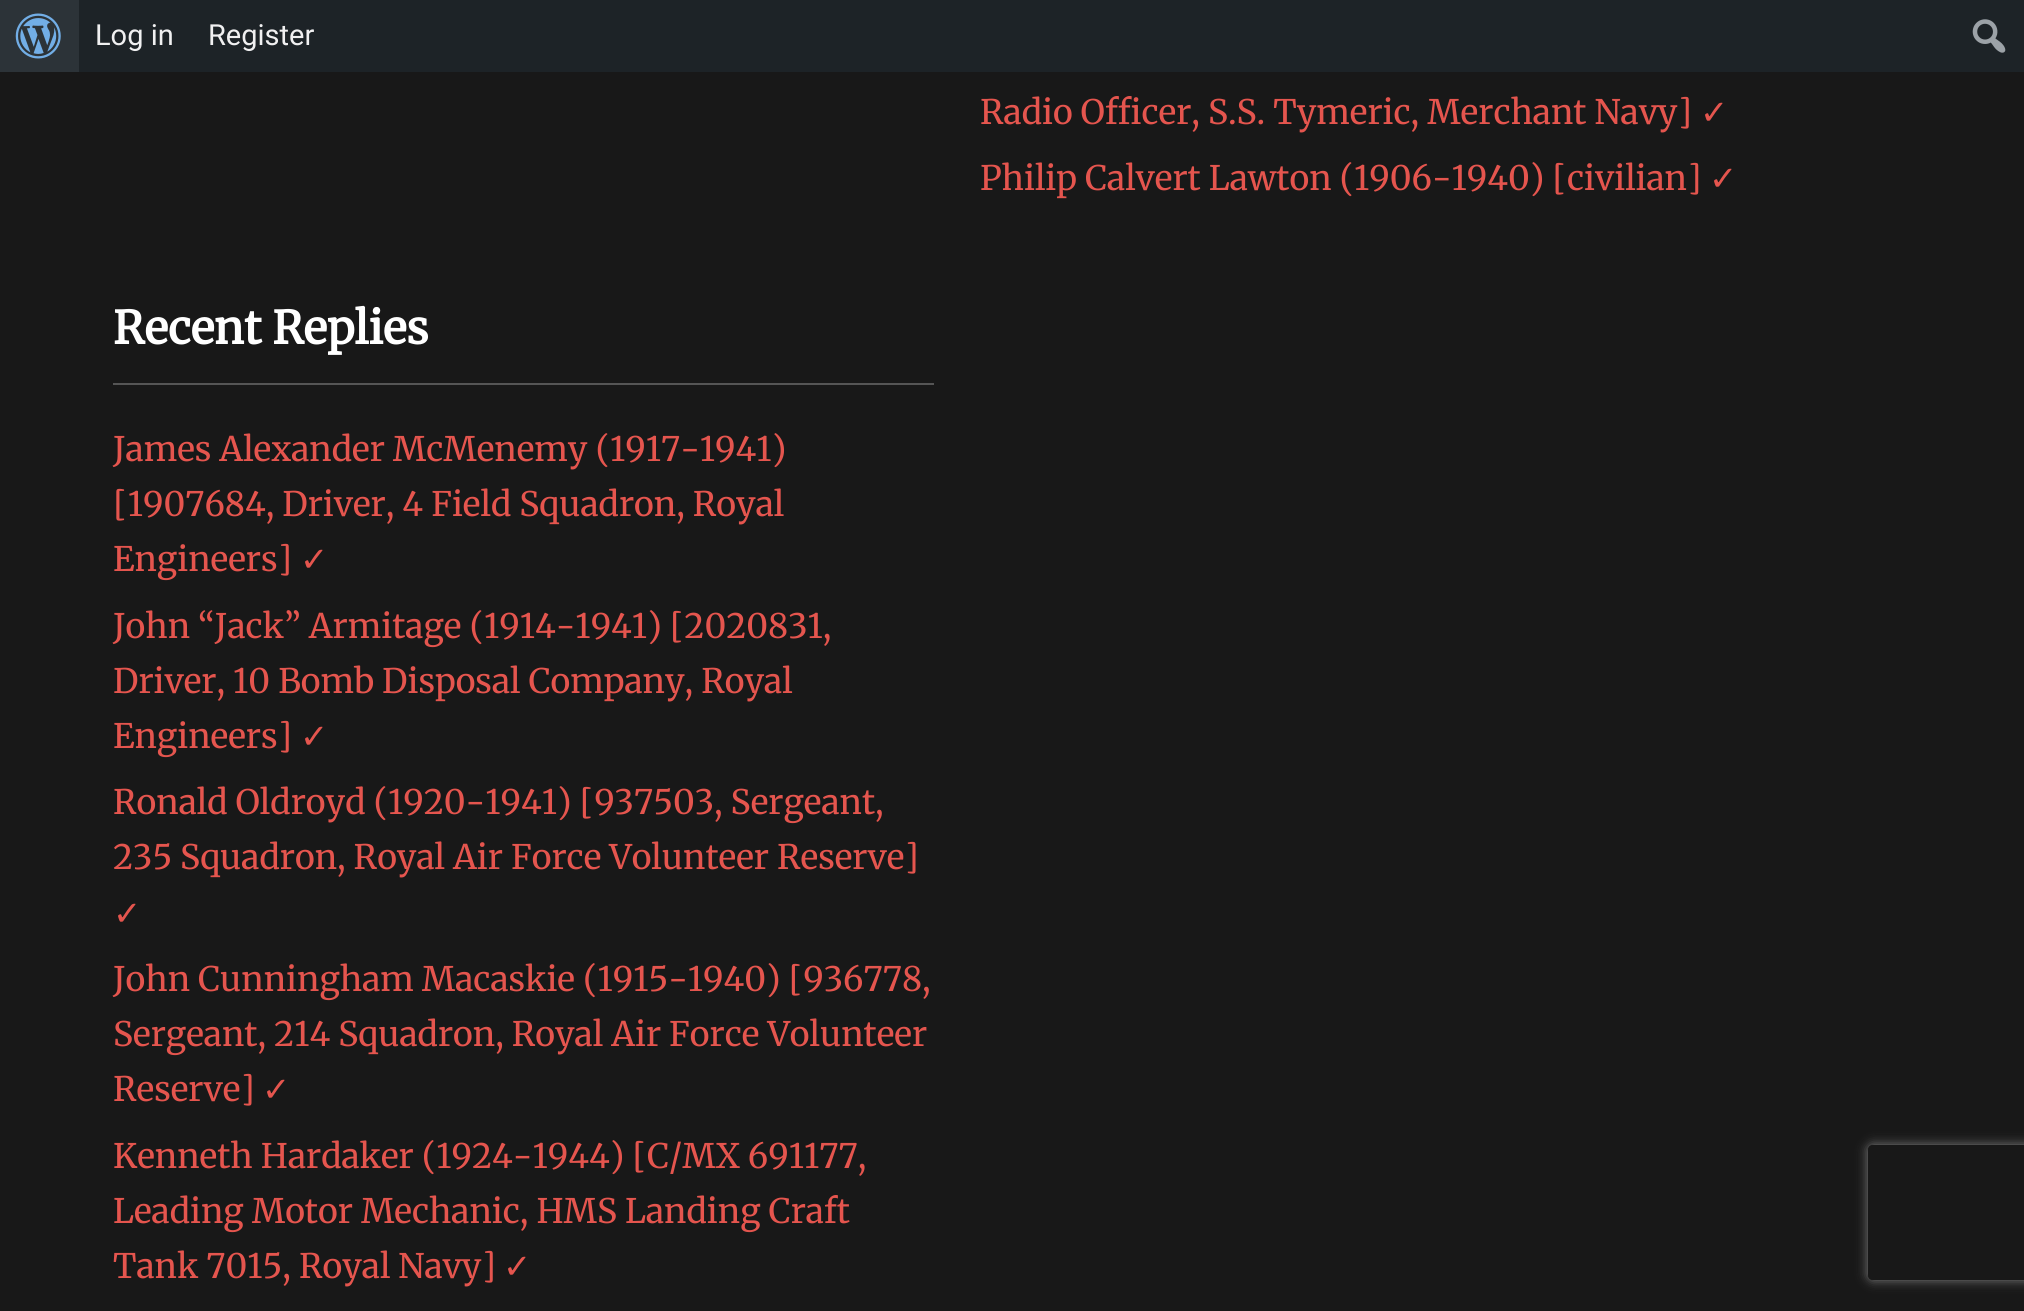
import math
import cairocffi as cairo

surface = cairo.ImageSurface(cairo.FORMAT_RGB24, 2024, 1311)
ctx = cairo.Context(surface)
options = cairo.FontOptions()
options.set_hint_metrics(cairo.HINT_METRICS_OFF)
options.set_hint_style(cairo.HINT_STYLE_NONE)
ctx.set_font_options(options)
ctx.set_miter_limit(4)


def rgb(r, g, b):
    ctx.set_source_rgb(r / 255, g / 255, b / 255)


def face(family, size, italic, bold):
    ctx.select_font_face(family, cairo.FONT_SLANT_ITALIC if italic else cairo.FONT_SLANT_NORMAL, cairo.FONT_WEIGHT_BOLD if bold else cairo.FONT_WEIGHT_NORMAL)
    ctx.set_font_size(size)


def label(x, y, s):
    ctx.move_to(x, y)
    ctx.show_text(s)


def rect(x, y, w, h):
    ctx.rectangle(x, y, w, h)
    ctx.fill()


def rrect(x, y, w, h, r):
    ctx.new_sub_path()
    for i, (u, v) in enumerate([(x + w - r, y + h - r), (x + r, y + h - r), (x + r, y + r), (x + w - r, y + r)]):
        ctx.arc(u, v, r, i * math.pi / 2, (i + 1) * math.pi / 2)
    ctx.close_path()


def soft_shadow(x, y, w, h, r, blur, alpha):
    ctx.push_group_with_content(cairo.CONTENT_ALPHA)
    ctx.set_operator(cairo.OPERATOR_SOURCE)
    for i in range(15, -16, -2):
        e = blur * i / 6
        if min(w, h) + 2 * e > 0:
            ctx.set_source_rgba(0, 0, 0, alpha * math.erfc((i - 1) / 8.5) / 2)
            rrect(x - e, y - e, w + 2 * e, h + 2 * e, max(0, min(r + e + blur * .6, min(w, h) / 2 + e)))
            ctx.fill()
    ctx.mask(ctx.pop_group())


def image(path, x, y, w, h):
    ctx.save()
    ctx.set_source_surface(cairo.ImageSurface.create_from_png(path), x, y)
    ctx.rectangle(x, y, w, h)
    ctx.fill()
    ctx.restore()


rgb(24, 24, 24)
ctx.paint()
rgb(29, 35, 39)
rect(79, 0, 1945, 72)
rgb(44, 51, 56)
rect(0, 0, 79, 72)
image('image0.png', 15, 13, 46, 46)
face('Roboto', 29, 0, 0)
rgb(240, 240, 241)
label(95, 45, 'Log in')
label(208, 45, 'Register')
image('image1.png', 1972, 19, 34, 34)
face('Merriweather Light', 33.75, 0, 0)
rgb(229, 85, 78)
label(980, 124, 'Radio Officer, S.S. Tymeric, Merchant Navy]')
face('DejaVu Sans', 33.75, 0, 0)
label(1700, 124, '✓')
face('Merriweather Light', 33.75, 0, 0)
label(980, 190, 'Philip Calvert Lawton (1906-1940) [civilian]')
face('DejaVu Sans', 33.75, 0, 0)
label(1709, 190, '✓')
rgb(85, 85, 85)
rect(113, 383, 821, 2)
face('Merriweather', 45, 0, 1)
rgb(255, 255, 255)
label(113, 344, 'Recent Replies')
face('Merriweather Light', 33.75, 0, 0)
rgb(229, 85, 78)
label(113, 461, 'James Alexander McMenemy (1917-1941)')
label(113, 516, '[1907684, Driver, 4 Field Squadron, Royal')
label(113, 571, 'Engineers]')
face('DejaVu Sans', 33.75, 0, 0)
label(300, 571, '✓')
face('Merriweather Light', 33.75, 0, 0)
label(113, 638, 'John “Jack” Armitage (1914-1941) [2020831,')
label(113, 693, 'Driver, 10 Bomb Disposal Company, Royal')
label(113, 748, 'Engineers]')
face('DejaVu Sans', 33.75, 0, 0)
label(300, 748, '✓')
face('Merriweather Light', 33.75, 0, 0)
label(113, 814, 'Ronald Oldroyd (1920-1941) [937503, Sergeant,')
label(113, 869, '235 Squadron, Royal Air Force Volunteer Reserve]')
face('DejaVu Sans', 33.75, 0, 0)
label(113, 925, '✓')
face('Merriweather Light', 33.75, 0, 0)
label(113, 991, 'John Cunningham Macaskie (1915-1940) [936778,')
label(113, 1046, 'Sergeant, 214 Squadron, Royal Air Force Volunteer')
label(113, 1101, 'Reserve]')
face('DejaVu Sans', 33.75, 0, 0)
label(262, 1101, '✓')
face('Merriweather Light', 33.75, 0, 0)
label(113, 1168, 'Kenneth Hardaker (1924-1944) [C/MX 691177,')
label(113, 1223, 'Leading Motor Mechanic, HMS Landing Craft')
label(113, 1278, 'Tank 7015, Royal Navy]')
face('DejaVu Sans', 33.75, 0, 0)
label(503, 1278, '✓')
ctx.save()
ctx.set_fill_rule(cairo.FILL_RULE_EVEN_ODD)
ctx.new_path()
ctx.move_to(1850, 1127)
ctx.line_to(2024, 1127)
ctx.line_to(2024, 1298)
ctx.line_to(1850, 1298)
ctx.close_path()
ctx.move_to(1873, 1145)
ctx.line_to(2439, 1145)
ctx.curve_to(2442, 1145, 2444, 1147, 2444, 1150)
ctx.line_to(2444, 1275)
ctx.curve_to(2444, 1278, 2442, 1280, 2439, 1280)
ctx.line_to(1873, 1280)
ctx.curve_to(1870, 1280, 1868, 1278, 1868, 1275)
ctx.line_to(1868, 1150)
ctx.curve_to(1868, 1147, 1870, 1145, 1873, 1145)
ctx.close_path()
ctx.clip()
rgb(128, 128, 128)
soft_shadow(1868, 1145, 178, 135, 5, 5.5, 1)
ctx.restore()
surface.write_to_png('render.png')
